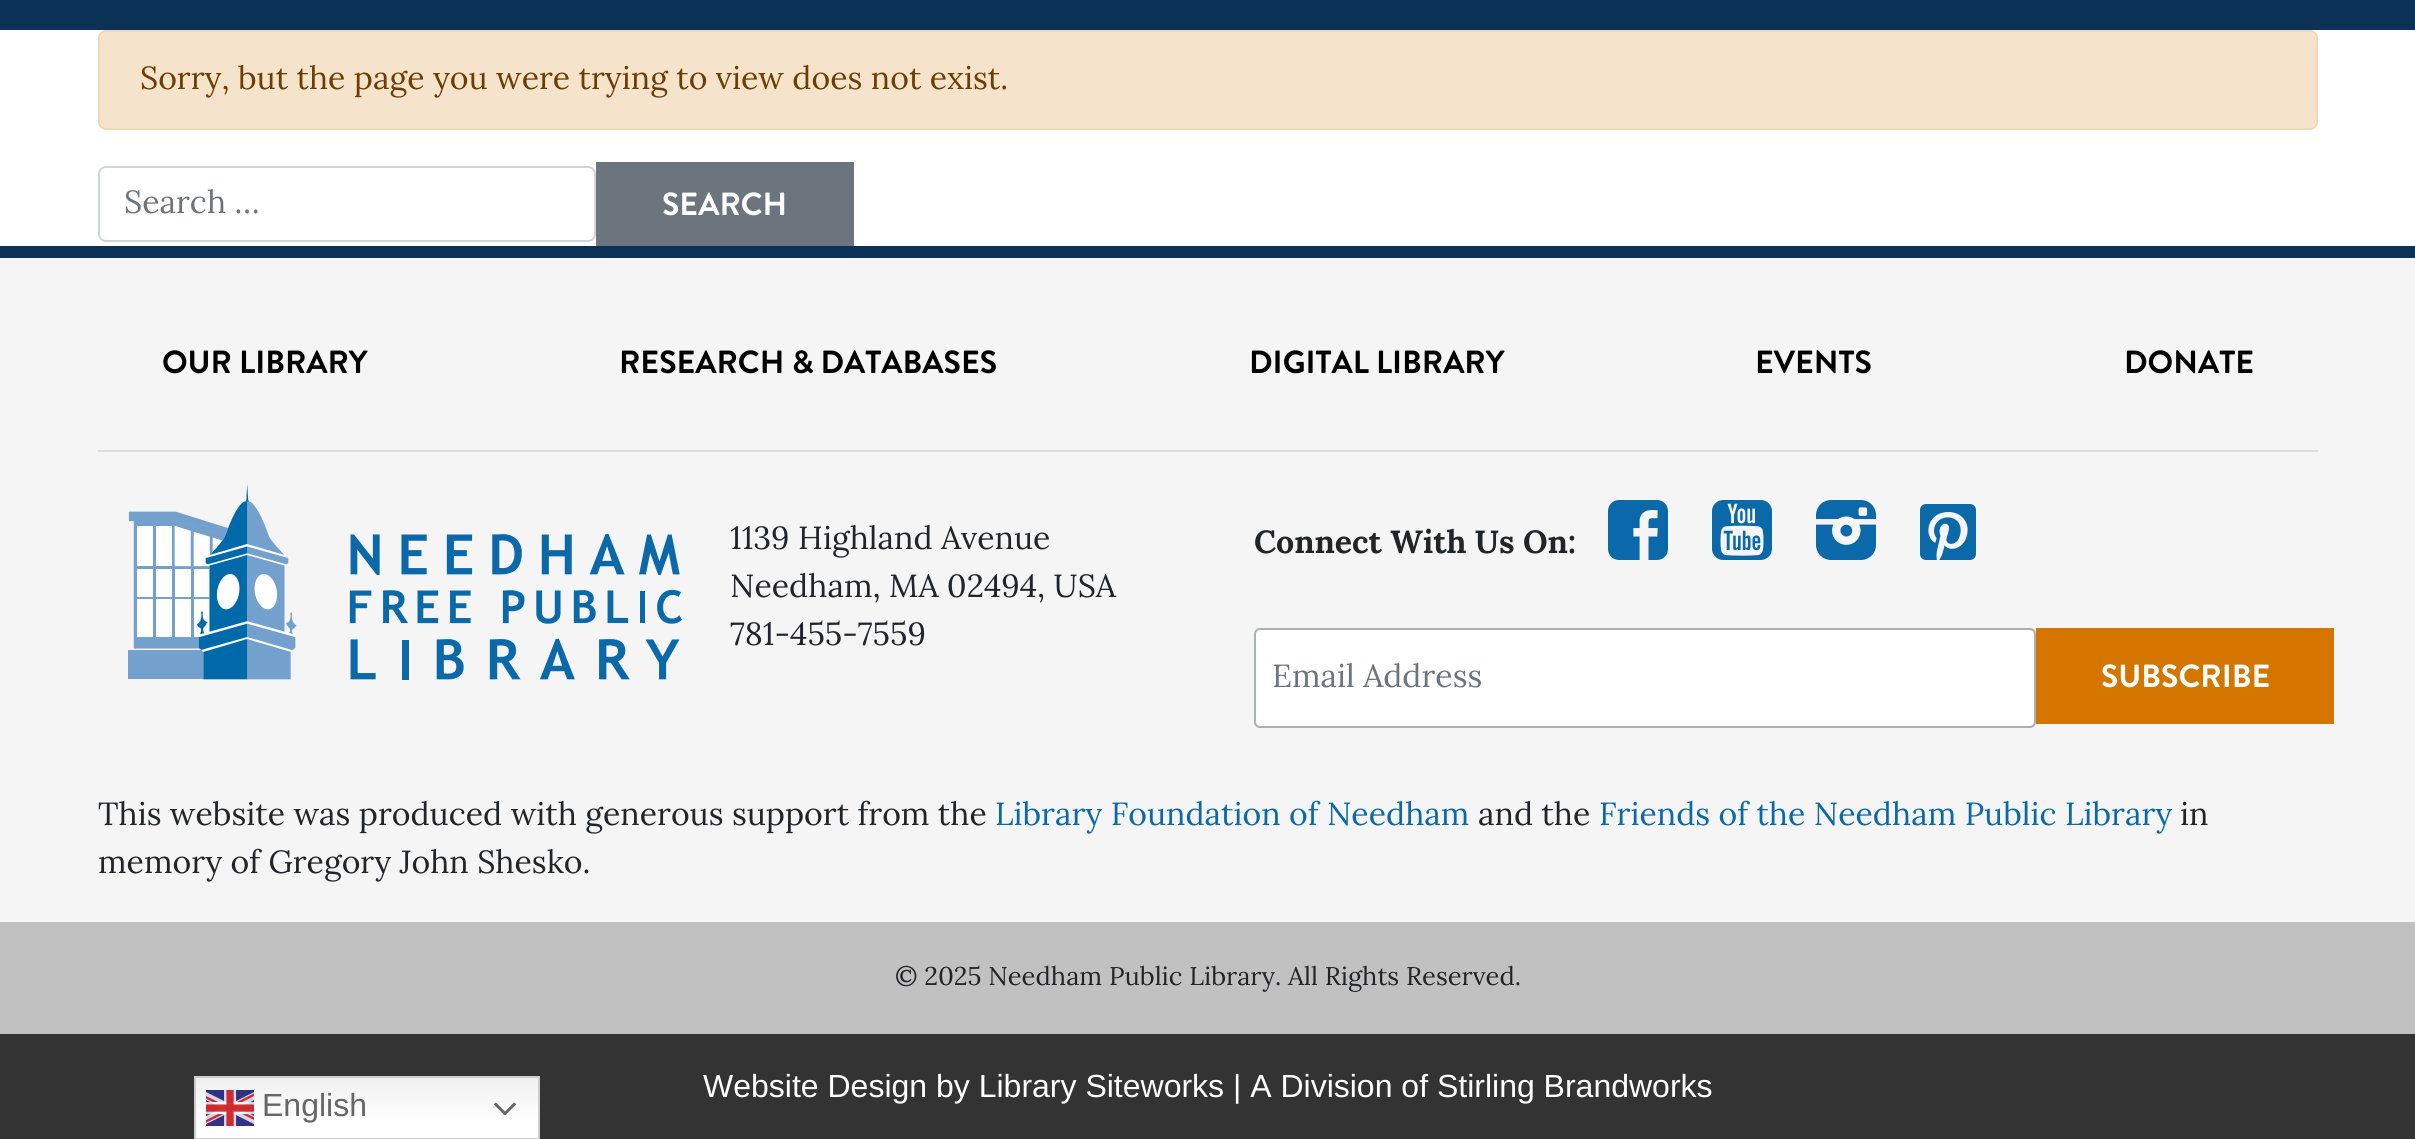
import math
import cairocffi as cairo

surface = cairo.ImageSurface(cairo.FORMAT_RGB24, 2415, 1139)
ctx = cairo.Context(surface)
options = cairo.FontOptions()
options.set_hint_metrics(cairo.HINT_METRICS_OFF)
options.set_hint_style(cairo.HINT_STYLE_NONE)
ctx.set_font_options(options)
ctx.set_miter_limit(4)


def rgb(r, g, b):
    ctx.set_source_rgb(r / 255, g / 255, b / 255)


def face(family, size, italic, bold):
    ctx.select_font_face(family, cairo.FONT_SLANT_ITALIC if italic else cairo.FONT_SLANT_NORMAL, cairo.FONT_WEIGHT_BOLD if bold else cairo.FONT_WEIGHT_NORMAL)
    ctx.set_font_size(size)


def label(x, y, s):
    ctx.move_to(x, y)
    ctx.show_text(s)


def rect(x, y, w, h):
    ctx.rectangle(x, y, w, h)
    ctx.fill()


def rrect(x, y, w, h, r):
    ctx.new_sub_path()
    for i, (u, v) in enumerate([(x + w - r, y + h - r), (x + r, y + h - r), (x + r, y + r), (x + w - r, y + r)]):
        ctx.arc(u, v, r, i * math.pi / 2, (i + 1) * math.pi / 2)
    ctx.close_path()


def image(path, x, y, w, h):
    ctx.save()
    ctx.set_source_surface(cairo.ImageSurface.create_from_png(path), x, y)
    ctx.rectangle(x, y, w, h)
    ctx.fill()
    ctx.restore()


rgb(255, 255, 255)
ctx.paint()
rgb(12, 49, 86)
rect(0, 0, 2415, 30)
rgb(246, 227, 204)
rrect(99, 31, 2218, 98, 7)
ctx.fill_preserve()
rgb(243, 216, 184)
ctx.stroke()
face('Lora', 32, 0, 0)
rgb(110, 61, 0)
label(140, 89, 'Sorry, but the page you were trying to view does not exist.')
rrect(99, 167, 496, 74, 7)
rgb(206, 212, 218)
ctx.stroke()
rgb(108, 117, 125)
label(124, 213, 'Search …')
rect(596, 162, 258, 84)
face('Brandon Grotesque', 32, 0, 1)
rgb(255, 255, 255)
label(662, 215, 'SEARCH')
rgb(245, 245, 245)
rect(0, 258, 2415, 664)
rgb(12, 49, 86)
rect(0, 246, 2415, 12)
rgb(0, 0, 0)
label(162, 373, 'OUR LIBRARY')
label(619, 373, 'RESEARCH & DATABASES')
label(1249, 373, 'DIGITAL LIBRARY')
label(1755, 373, 'EVENTS')
label(2124, 373, 'DONATE')
rgb(221, 221, 221)
rect(98, 450, 2220, 2)
image('image0.png', 128, 484, 554, 196)
face('Lora', 32, 0, 0)
rgb(33, 37, 41)
label(730, 549, '1139 Highland Avenue')
label(730, 597, 'Needham, MA 02494, USA')
label(730, 645, '781-455-7559')
face('Lora', 32, 0, 1)
label(1254, 553, 'Connect With Us On:')
image('image1.png', 1608, 500, 60, 60)
image('image2.png', 1712, 500, 60, 60)
image('image3.png', 1816, 500, 60, 60)
image('image4.png', 1920, 504, 56, 56)
rgb(255, 255, 255)
rrect(1255, 629, 780, 98, 5)
ctx.fill_preserve()
rgb(171, 176, 178)
ctx.stroke()
face('Lora', 32, 0, 0)
rgb(108, 117, 125)
label(1272, 687, 'Email Address')
rgb(212, 117, 0)
rect(2036, 628, 298, 96)
face('Brandon Grotesque', 32, 0, 1)
rgb(255, 255, 255)
label(2101, 687, 'SUBSCRIBE')
face('Lora', 32, 0, 0)
rgb(33, 37, 41)
label(98, 825, 'This website was produced with generous support from the')
rgb(11, 105, 170)
label(995, 825, 'Library Foundation of Needham')
rgb(33, 37, 41)
label(1478, 825, 'and the')
rgb(11, 105, 170)
label(1599, 825, 'Friends of the Needham Public Library')
rgb(33, 37, 41)
label(2180, 825, 'in')
label(98, 873, 'memory of Gregory John Shesko.')
rgb(193, 193, 193)
rect(0, 922, 2415, 112)
face('Lora', 25.6, 0, 0)
rgb(33, 37, 41)
label(895, 985, '© 2025 Needham Public Library. All Rights Reserved.')
rgb(51, 51, 51)
rect(0, 1034, 2415, 105)
face('Liberation Sans', 32, 0, 0)
rgb(255, 255, 255)
label(703, 1097, 'Website Design by Library Siteworks | A Division of Stirling Brandworks')
gradient = cairo.LinearGradient(367, 1076, 367, 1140)
gradient.add_color_stop_rgba(0, 0.937, 0.937, 0.937, 1)
gradient.add_color_stop_rgba(0.7, 1, 1, 1, 1)
ctx.set_source(gradient)
rect(196, 1078, 342, 60)
ctx.rectangle(195, 1077, 344, 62)
rgb(204, 204, 204)
ctx.stroke()
image('image5.png', 206, 1090, 48, 36)
rgb(102, 102, 102)
label(262, 1116, 'English')
image('image6.png', 494, 1102, 22, 14)
surface.write_to_png('render.png')
